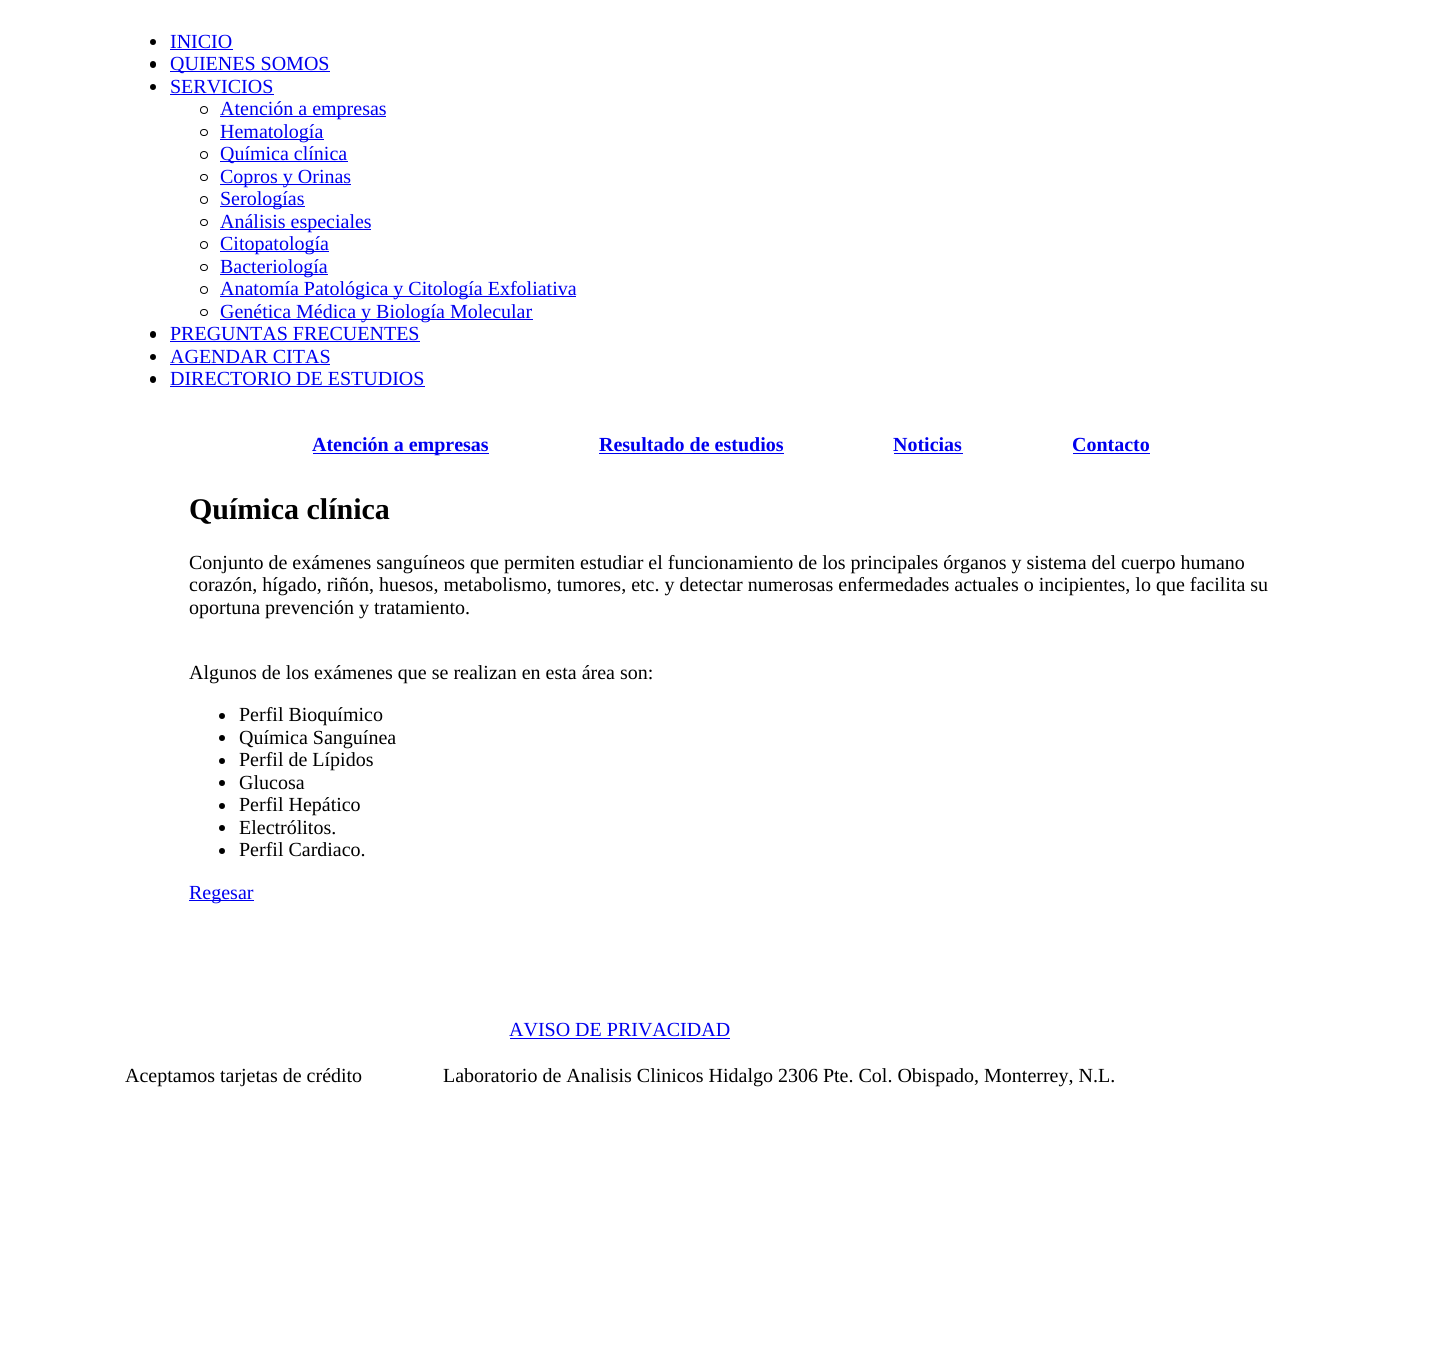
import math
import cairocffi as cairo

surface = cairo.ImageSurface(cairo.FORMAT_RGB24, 1437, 1349)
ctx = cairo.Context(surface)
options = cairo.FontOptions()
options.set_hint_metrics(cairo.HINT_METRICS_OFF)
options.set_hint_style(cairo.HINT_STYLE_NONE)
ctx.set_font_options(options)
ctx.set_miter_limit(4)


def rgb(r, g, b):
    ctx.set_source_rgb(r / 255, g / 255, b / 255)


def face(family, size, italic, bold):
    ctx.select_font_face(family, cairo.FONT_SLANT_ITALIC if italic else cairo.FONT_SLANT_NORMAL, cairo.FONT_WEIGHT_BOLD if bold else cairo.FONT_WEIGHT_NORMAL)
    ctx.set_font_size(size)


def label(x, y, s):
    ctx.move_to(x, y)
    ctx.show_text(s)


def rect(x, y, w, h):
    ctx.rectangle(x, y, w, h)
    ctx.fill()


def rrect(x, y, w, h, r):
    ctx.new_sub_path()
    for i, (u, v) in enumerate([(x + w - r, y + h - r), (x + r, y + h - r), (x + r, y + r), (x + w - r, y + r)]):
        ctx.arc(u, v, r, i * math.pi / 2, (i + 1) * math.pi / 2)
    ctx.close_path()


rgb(255, 255, 255)
ctx.paint()
rgb(0, 0, 0)
ctx.arc(153, 42, 3, 0, 2 * math.pi)
ctx.fill()
face('Liberation Serif', 20, 0, 0)
rgb(0, 0, 238)
label(170, 48, 'INICIO')
rect(170, 49, 63, 1)
rgb(0, 0, 0)
rrect(150, 61, 6, 7, 3)
ctx.fill()
rgb(0, 0, 238)
rect(170, 71, 160, 1)
label(170, 70, 'QUIENES SOMOS')
rgb(0, 0, 0)
ctx.new_path()
ctx.arc(153, 87, 3, 0, 2 * math.pi)
ctx.fill()
rgb(0, 0, 238)
label(170, 93, 'SERVICIOS')
rect(170, 94, 104, 1)
ctx.new_path()
ctx.arc(204, 110, 3.5, 0, 2 * math.pi)
rgb(0, 0, 0)
ctx.set_line_width(1)
ctx.stroke()
rgb(0, 0, 238)
rect(220, 116, 166, 1)
label(220, 115, 'Atención a empresas')
rrect(200.5, 129.5, 7, 6, 3)
rgb(0, 0, 0)
ctx.stroke()
rgb(0, 0, 238)
rect(220, 139, 104, 1)
label(220, 138, 'Hematología')
ctx.new_path()
ctx.arc(204, 155, 3.5, 0, 2 * math.pi)
rgb(0, 0, 0)
ctx.stroke()
rgb(0, 0, 238)
rect(220, 161, 128, 1)
label(220, 160, 'Química clínica')
rrect(200.5, 174.5, 7, 6, 3)
rgb(0, 0, 0)
ctx.stroke()
rgb(0, 0, 238)
rect(220, 184, 131, 1)
label(220, 183, 'Copros y Orinas')
ctx.new_path()
ctx.arc(204, 200, 3.5, 0, 2 * math.pi)
rgb(0, 0, 0)
ctx.stroke()
rgb(0, 0, 238)
rect(220, 206, 85, 1)
label(220, 205, 'Serologías')
rrect(200.5, 219.5, 7, 6, 3)
rgb(0, 0, 0)
ctx.stroke()
rgb(0, 0, 238)
rect(220, 229, 151, 1)
label(220, 228, 'Análisis especiales')
ctx.new_path()
ctx.arc(204, 245, 3.5, 0, 2 * math.pi)
rgb(0, 0, 0)
ctx.stroke()
rgb(0, 0, 238)
rect(220, 251, 109, 1)
label(220, 250, 'Citopatología')
rrect(200.5, 264.5, 7, 6, 3)
rgb(0, 0, 0)
ctx.stroke()
rgb(0, 0, 238)
rect(220, 274, 108, 1)
label(220, 273, 'Bacteriología')
ctx.new_path()
ctx.arc(204, 290, 3.5, 0, 2 * math.pi)
rgb(0, 0, 0)
ctx.stroke()
rgb(0, 0, 238)
rect(220, 296, 356, 1)
label(220, 295, 'Anatomía Patológica y Citología Exfoliativa')
rrect(200.5, 309.5, 7, 6, 3)
rgb(0, 0, 0)
ctx.stroke()
rgb(0, 0, 238)
rect(220, 319, 313, 1)
label(220, 318, 'Genética Médica y Biología Molecular')
rgb(0, 0, 0)
rrect(150, 331, 6, 7, 3)
ctx.fill()
rgb(0, 0, 238)
label(170, 340, 'PREGUNTAS FRECUENTES')
rect(170, 341, 250, 1)
rgb(0, 0, 0)
ctx.new_path()
ctx.arc(153, 357, 3, 0, 2 * math.pi)
ctx.fill()
rgb(0, 0, 238)
label(170, 363, 'AGENDAR CITAS')
rect(170, 364, 160, 1)
rgb(0, 0, 0)
rrect(150, 376, 6, 7, 3)
ctx.fill()
rgb(0, 0, 238)
label(170, 385, 'DIRECTORIO DE ESTUDIOS')
rect(170, 386, 255, 1)
rect(313, 453, 176, 1)
face('Liberation Serif', 20, 0, 1)
label(312, 451, 'Atención a empresas')
label(599, 451, 'Resultado de estudios')
rect(599, 453, 185, 1)
label(893, 451, 'Noticias')
rect(894, 453, 69, 1)
label(1072, 451, 'Contacto')
rect(1073, 453, 77, 1)
face('Liberation Serif', 30, 0, 1)
rgb(0, 0, 0)
label(189, 519, 'Química clínica')
face('Liberation Serif', 20, 0, 0)
label(189, 569, 'Conjunto de exámenes sanguíneos que permiten estudiar el funcionamiento de los principales órganos y sistema del cuerpo humano')
label(189, 591, 'corazón, hígado, riñón, huesos, metabolismo, tumores, etc. y detectar numerosas enfermedades actuales o incipientes, lo que facilita su')
label(189, 614, 'oportuna prevención y tratamiento.')
label(189, 679, 'Algunos de los exámenes que se realizan en esta área son:')
ctx.new_path()
ctx.arc(222, 716, 3, 0, 2 * math.pi)
ctx.fill()
label(239, 721, 'Perfil Bioquímico')
ctx.new_path()
ctx.arc(222, 738, 3, 0, 2 * math.pi)
ctx.fill()
label(239, 744, 'Química Sanguínea')
ctx.new_path()
ctx.arc(222, 761, 3, 0, 2 * math.pi)
ctx.fill()
label(239, 766, 'Perfil de Lípidos')
ctx.new_path()
ctx.arc(222, 783, 3, 0, 2 * math.pi)
ctx.fill()
label(239, 789, 'Glucosa')
ctx.new_path()
ctx.arc(222, 806, 3, 0, 2 * math.pi)
ctx.fill()
label(239, 811, 'Perfil Hepático')
ctx.new_path()
ctx.arc(222, 828, 3, 0, 2 * math.pi)
ctx.fill()
label(239, 834, 'Electrólitos.')
ctx.new_path()
ctx.arc(222, 851, 3, 0, 2 * math.pi)
ctx.fill()
label(239, 856, 'Perfil Cardiaco.')
rgb(0, 0, 238)
rect(189, 900, 65, 1)
label(189, 899, 'Regesar')
label(509, 1036, 'AVISO DE PRIVACIDAD')
rect(510, 1038, 220, 1)
rgb(0, 0, 0)
label(125, 1082, 'Aceptamos tarjetas de crédito')
label(443, 1082, 'Laboratorio de Analisis Clinicos Hidalgo 2306 Pte. Col. Obispado, Monterrey, N.L.')
surface.write_to_png('render.png')
